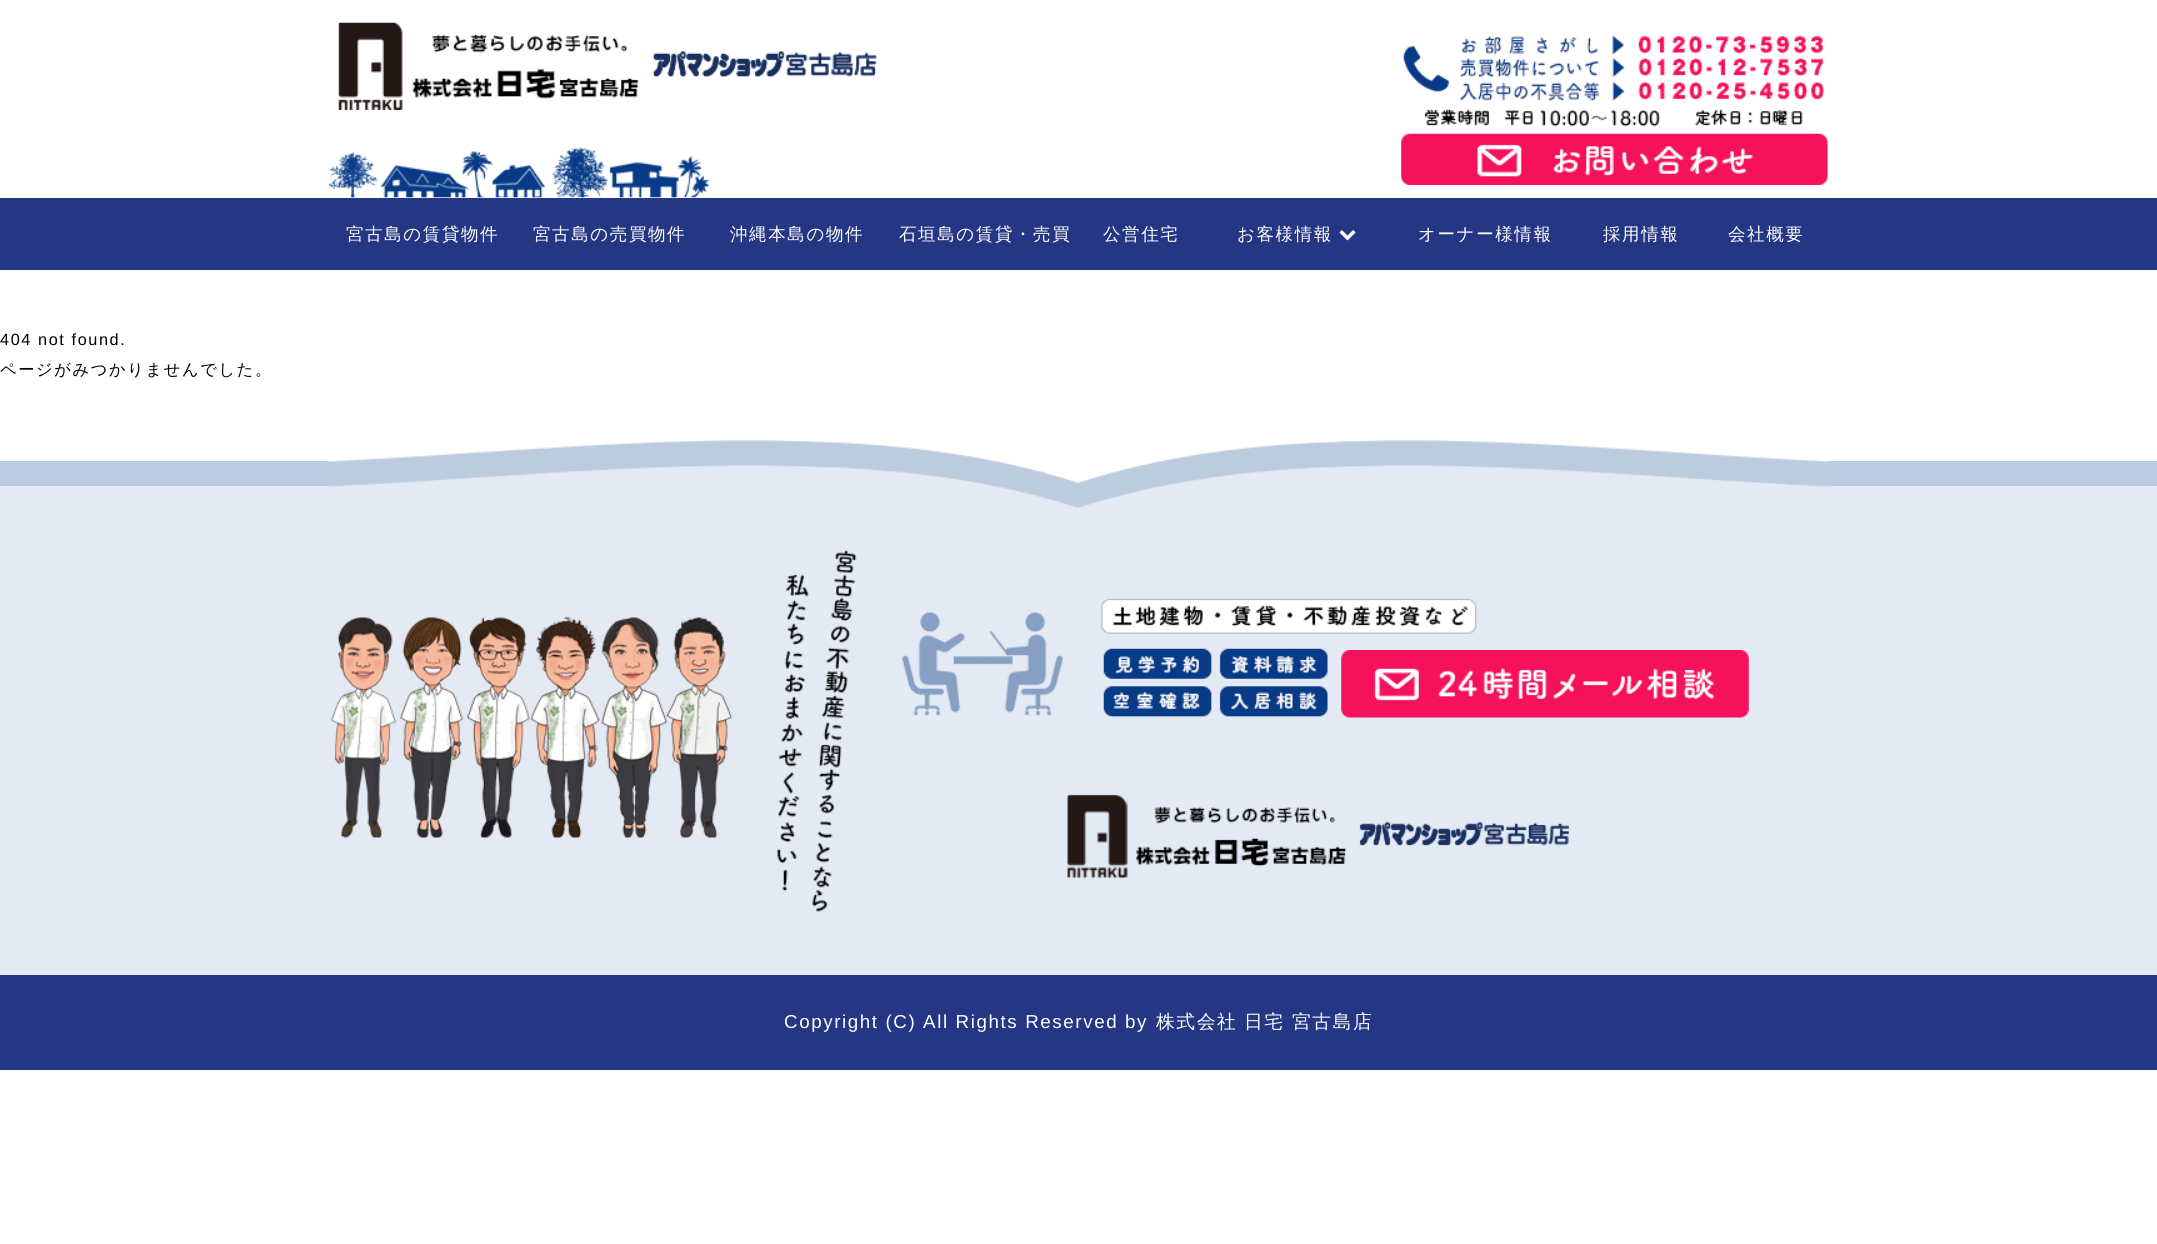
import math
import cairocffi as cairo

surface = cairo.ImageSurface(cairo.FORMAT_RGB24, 2157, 1244)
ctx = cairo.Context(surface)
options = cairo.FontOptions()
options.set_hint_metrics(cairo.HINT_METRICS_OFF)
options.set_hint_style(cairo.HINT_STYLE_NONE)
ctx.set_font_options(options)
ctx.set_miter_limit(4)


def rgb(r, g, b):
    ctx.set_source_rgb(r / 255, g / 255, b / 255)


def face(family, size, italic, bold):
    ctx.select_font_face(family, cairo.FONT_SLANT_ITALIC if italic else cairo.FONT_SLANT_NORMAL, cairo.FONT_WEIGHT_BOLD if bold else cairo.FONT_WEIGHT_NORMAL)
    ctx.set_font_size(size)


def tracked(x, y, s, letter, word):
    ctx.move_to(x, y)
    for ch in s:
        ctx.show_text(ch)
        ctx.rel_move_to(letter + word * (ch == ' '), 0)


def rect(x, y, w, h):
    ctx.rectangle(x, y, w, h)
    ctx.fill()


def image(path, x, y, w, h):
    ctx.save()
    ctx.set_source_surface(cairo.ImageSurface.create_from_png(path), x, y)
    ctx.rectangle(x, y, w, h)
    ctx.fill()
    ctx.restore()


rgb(255, 255, 255)
ctx.paint()
image('image0.png', 338, 22, 539, 88)
image('image1.png', 1401, 35, 427, 150)
image('image2.png', 328, 147, 381, 51)
rgb(36, 54, 132)
rect(0, 198, 2157, 72)
face('WenQuanYi Zen Hei Medium', 17.5, 0, 0)
rgb(255, 255, 255)
tracked(346, 240, '宮古島の賃貸物件', 1.6, 0)
tracked(533, 240, '宮古島の売買物件', 1.6, 0)
tracked(730, 240, '沖縄本島の物件', 1.6, 0)
tracked(899, 240, '石垣島の賃貸・売買', 1.6, 0)
tracked(1103, 240, '公営住宅', 1.6, 0)
tracked(1237, 240, 'お客様情報', 1.6, 0)
image('image3.png', 1339, 230, 17, 11)
tracked(1418, 240, 'オーナー様情報', 1.6, 0)
tracked(1603, 240, '採用情報', 1.6, 0)
tracked(1728, 240, '会社概要', 1.6, 0)
face('Liberation Sans', 16.25, 0, 0)
rgb(0, 0, 0)
tracked(0, 345, '404 not found.', 1.6, 0)
face('WenQuanYi Zen Hei Medium', 16.25, 0, 0)
tracked(0, 375, 'ページがみつかりませんでした。', 1.6, 0)
rgb(228, 234, 243)
rect(0, 486, 2157, 489)
rgb(188, 203, 223)
rect(0, 461, 2157, 25)
image('image4.png', 328, 440, 1501, 472)
image('image5.png', 331, 617, 401, 221)
image('image6.png', 1341, 650, 408, 68)
rgb(36, 54, 132)
rect(0, 975, 2157, 95)
face('Liberation Sans', 18.75, 0, 0)
rgb(255, 255, 255)
tracked(784, 1028, 'Copyright (C) All Rights Reserved by', 1.6, 0)
face('WenQuanYi Zen Hei Medium', 18.75, 0, 0)
tracked(1156, 1028, '株式会社', 1.6, 0)
tracked(1244, 1028, '日宅', 1.6, 0)
tracked(1292, 1028, '宮古島店', 1.6, 0)
surface.write_to_png('render.png')
